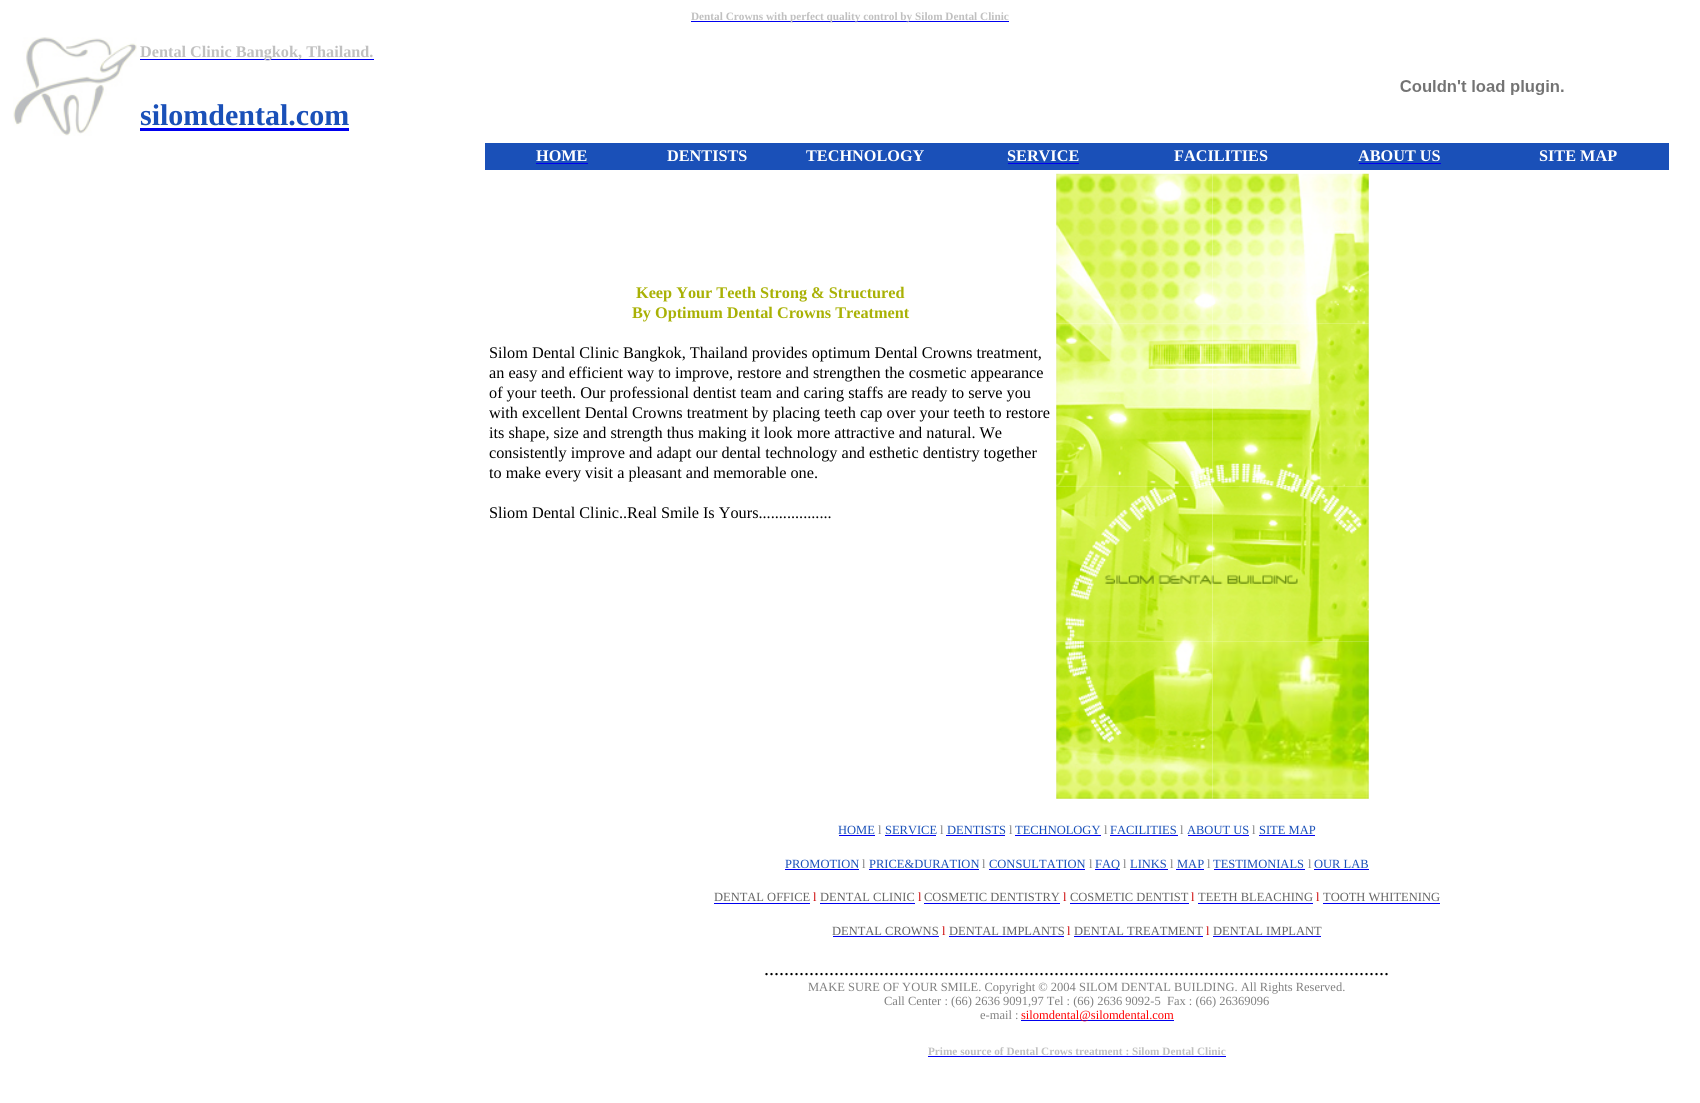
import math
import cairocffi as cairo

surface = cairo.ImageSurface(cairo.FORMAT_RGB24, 1700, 1103)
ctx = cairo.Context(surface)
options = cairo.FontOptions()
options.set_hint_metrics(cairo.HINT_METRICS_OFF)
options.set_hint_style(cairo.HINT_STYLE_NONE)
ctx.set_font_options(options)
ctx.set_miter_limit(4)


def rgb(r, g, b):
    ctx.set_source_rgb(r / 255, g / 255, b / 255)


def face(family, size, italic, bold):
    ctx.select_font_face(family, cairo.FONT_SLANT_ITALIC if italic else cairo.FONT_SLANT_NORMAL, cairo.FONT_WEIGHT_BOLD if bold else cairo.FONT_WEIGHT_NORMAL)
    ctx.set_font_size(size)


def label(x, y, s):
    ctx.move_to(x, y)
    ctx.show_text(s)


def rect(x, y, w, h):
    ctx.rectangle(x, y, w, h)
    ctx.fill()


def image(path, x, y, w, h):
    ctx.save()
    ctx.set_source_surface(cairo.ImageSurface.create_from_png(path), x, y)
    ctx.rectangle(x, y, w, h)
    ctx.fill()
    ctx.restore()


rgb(255, 255, 255)
ctx.paint()
rgb(0, 0, 238)
rect(691, 21, 318, 1)
face('Liberation Serif', 11.25, 0, 1)
rgb(192, 192, 192)
label(691, 20, 'Dental Crowns with perfect quality control by Silom Dental Clinic')
image('image0.png', 13, 37, 124, 99)
rgb(0, 0, 238)
rect(140, 59, 234, 1)
face('Liberation Serif', 16.25, 0, 1)
rgb(192, 192, 192)
label(140, 57, 'Dental Clinic Bangkok, Thailand.')
face('Liberation Serif', 30, 0, 1)
rgb(26, 80, 184)
label(140, 125, 'silomdental.com')
rgb(0, 0, 238)
rect(140, 128, 209, 3)
image('image1.png', 1400, 80, 164, 15)
rgb(26, 80, 184)
rect(485, 143, 1184, 27)
face('Liberation Serif', 16.25, 0, 1)
rgb(255, 255, 255)
label(536, 161, 'HOME')
rgb(0, 0, 238)
rect(536, 163, 52, 1)
rgb(255, 255, 255)
label(667, 161, 'DENTISTS')
label(806, 161, 'TECHNOLOGY')
label(1007, 161, 'SERVICE')
rgb(0, 0, 238)
rect(1008, 163, 71, 1)
rgb(255, 255, 255)
label(1174, 161, 'FACILITIES')
label(1358, 161, 'ABOUT US')
rgb(0, 0, 238)
rect(1359, 163, 82, 1)
rgb(255, 255, 255)
label(1539, 161, 'SITE MAP')
rgb(169, 177, 5)
label(636, 298, 'Keep Your Teeth Strong & Structured')
label(632, 318, 'By Optimum Dental Crowns Treatment')
face('Liberation Serif', 16.25, 0, 0)
rgb(0, 0, 0)
label(489, 358, 'Silom Dental Clinic Bangkok, Thailand provides optimum Dental Crowns treatment,')
label(489, 378, 'an easy and efficient way to improve, restore and strengthen the cosmetic appearance')
label(489, 398, 'of your teeth. Our professional dentist team and caring staffs are ready to serve you')
label(489, 418, 'with excellent Dental Crowns treatment by placing teeth cap over your teeth to restore')
label(489, 438, 'its shape, size and strength thus making it look more attractive and natural. We')
label(489, 458, 'consistently improve and adapt our dental technology and esthetic dentistry together')
label(489, 478, 'to make every visit a pleasant and memorable one.')
label(489, 518, 'Sliom Dental Clinic..Real Smile Is Yours..................')
image('image2.png', 1056, 173, 157, 151)
image('image3.png', 1212, 173, 157, 151)
image('image4.png', 1056, 323, 157, 164)
image('image5.png', 1212, 323, 157, 164)
image('image6.png', 1056, 486, 157, 156)
image('image7.png', 1212, 486, 157, 156)
image('image8.png', 1056, 641, 157, 158)
image('image9.png', 1212, 641, 157, 158)
face('Liberation Serif', 12.5, 0, 0)
rgb(26, 80, 184)
label(838, 834, 'HOME')
rgb(0, 0, 238)
rect(839, 835, 36, 1)
rgb(128, 128, 128)
label(878, 834, 'l')
rgb(26, 80, 184)
label(885, 834, 'SERVICE')
rgb(0, 0, 238)
rect(885, 835, 51, 1)
rgb(128, 128, 128)
label(940, 834, 'l')
rgb(26, 80, 184)
label(947, 834, 'DENTISTS')
rgb(0, 0, 238)
rect(946, 835, 59, 1)
rgb(128, 128, 128)
label(1009, 834, 'l')
rgb(26, 80, 184)
label(1015, 834, 'TECHNOLOGY')
rgb(0, 0, 238)
rect(1015, 835, 86, 1)
rgb(128, 128, 128)
label(1104, 834, 'l')
rgb(26, 80, 184)
label(1110, 834, 'FACILITIES')
rgb(0, 0, 238)
rect(1110, 835, 68, 1)
rgb(128, 128, 128)
label(1180, 834, 'l')
rgb(26, 80, 184)
label(1187, 834, 'ABOUT US')
rgb(0, 0, 238)
rect(1188, 835, 61, 1)
rgb(128, 128, 128)
label(1252, 834, 'l')
rgb(26, 80, 184)
label(1259, 834, 'SITE MAP')
rgb(0, 0, 238)
rect(1259, 835, 56, 1)
rgb(26, 80, 184)
label(785, 868, 'PROMOTION')
rgb(0, 0, 238)
rect(785, 869, 74, 1)
rgb(128, 128, 128)
label(862, 868, 'l')
rgb(26, 80, 184)
label(869, 868, 'PRICE&DURATION')
rgb(0, 0, 238)
rect(869, 869, 110, 1)
rgb(128, 128, 128)
label(982, 868, 'l')
rgb(26, 80, 184)
label(989, 868, 'CONSULTATION')
rgb(0, 0, 238)
rect(989, 869, 96, 1)
rgb(128, 128, 128)
label(1089, 868, 'l')
rgb(0, 0, 238)
rect(1095, 869, 25, 1)
rgb(26, 80, 184)
label(1095, 868, 'FAQ')
rgb(128, 128, 128)
label(1123, 868, 'l')
rgb(26, 80, 184)
label(1130, 868, 'LINKS')
rgb(0, 0, 238)
rect(1130, 869, 38, 1)
rgb(128, 128, 128)
label(1170, 868, 'l')
rgb(26, 80, 184)
label(1177, 868, 'MAP')
rgb(0, 0, 238)
rect(1176, 869, 28, 1)
rgb(128, 128, 128)
label(1207, 868, 'l')
rgb(26, 80, 184)
label(1213, 868, 'TESTIMONIALS')
rgb(0, 0, 238)
rect(1214, 869, 91, 1)
rgb(128, 128, 128)
label(1308, 868, 'l')
rgb(26, 80, 184)
label(1314, 868, 'OUR LAB')
rgb(0, 0, 238)
rect(1314, 869, 55, 1)
rgb(102, 102, 102)
label(714, 901, 'DENTAL OFFICE')
rgb(0, 0, 238)
rect(714, 903, 96, 1)
rgb(204, 0, 0)
label(813, 901, 'l')
rgb(102, 102, 102)
label(820, 901, 'DENTAL CLINIC')
rgb(0, 0, 238)
rect(820, 903, 95, 1)
rgb(204, 0, 0)
label(918, 901, 'l')
rgb(102, 102, 102)
label(924, 901, 'COSMETIC DENTISTRY')
rgb(0, 0, 238)
rect(924, 903, 136, 1)
rgb(204, 0, 0)
label(1063, 901, 'l')
rgb(102, 102, 102)
label(1070, 901, 'COSMETIC DENTIST')
rgb(0, 0, 238)
rect(1070, 903, 119, 1)
rgb(204, 0, 0)
label(1191, 901, 'l')
rgb(102, 102, 102)
label(1198, 901, 'TEETH BLEACHING')
rgb(0, 0, 238)
rect(1198, 903, 115, 1)
rgb(204, 0, 0)
label(1316, 901, 'l')
rgb(102, 102, 102)
label(1323, 901, 'TOOTH WHITENING')
rgb(0, 0, 238)
rect(1323, 903, 117, 1)
rgb(102, 102, 102)
label(832, 935, 'DENTAL CROWNS')
rgb(0, 0, 238)
rect(833, 936, 106, 1)
rgb(204, 0, 0)
label(942, 935, 'l')
rgb(102, 102, 102)
label(949, 935, 'DENTAL IMPLANTS')
rgb(0, 0, 238)
rect(949, 936, 115, 1)
rgb(204, 0, 0)
label(1067, 935, 'l')
rgb(102, 102, 102)
label(1074, 935, 'DENTAL TREATMENT')
rgb(0, 0, 238)
rect(1074, 936, 129, 1)
rgb(204, 0, 0)
label(1206, 935, 'l')
rgb(102, 102, 102)
label(1213, 935, 'DENTAL IMPLANT')
rgb(0, 0, 238)
rect(1213, 936, 108, 1)
face('Liberation Serif', 20, 0, 0)
rgb(0, 0, 0)
label(764, 975, '.............................................................................................................................')
face('Liberation Serif', 12.5, 0, 0)
rgb(128, 128, 128)
label(808, 991, 'MAKE SURE OF YOUR SMILE. Copyright © 2004 SILOM DENTAL BUILDING. All Rights Reserved.')
label(884, 1005, 'Call Center : (66) 2636 9091,97 Tel : (66) 2636 9092-5  Fax : (66) 26369096')
label(980, 1019, 'e-mail :')
rgb(0, 0, 238)
rect(1021, 1020, 153, 1)
rgb(255, 0, 0)
label(1021, 1019, 'silomdental@silomdental.com')
face('Liberation Serif', 11.25, 0, 1)
rgb(192, 192, 192)
label(928, 1055, 'Prime source of Dental Crows treatment : Silom Dental Clinic')
rgb(0, 0, 238)
rect(928, 1056, 298, 1)
surface.write_to_png('render.png')
